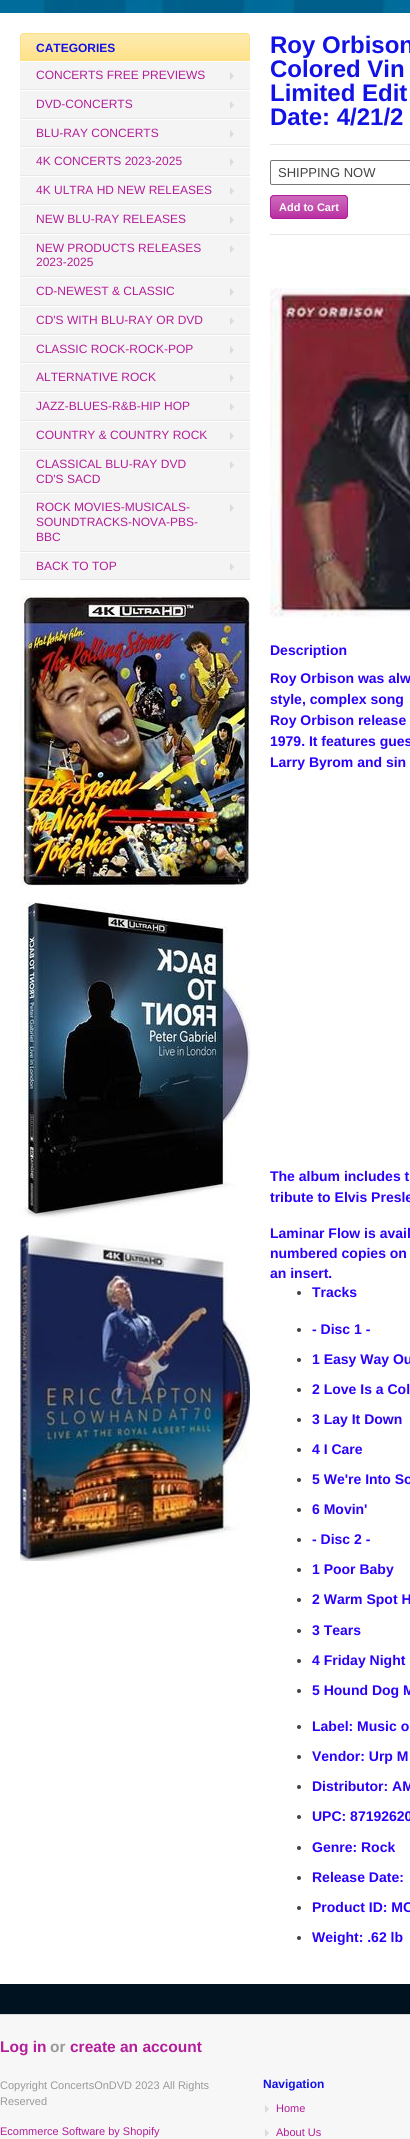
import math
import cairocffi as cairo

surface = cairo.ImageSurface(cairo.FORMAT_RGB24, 410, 2139)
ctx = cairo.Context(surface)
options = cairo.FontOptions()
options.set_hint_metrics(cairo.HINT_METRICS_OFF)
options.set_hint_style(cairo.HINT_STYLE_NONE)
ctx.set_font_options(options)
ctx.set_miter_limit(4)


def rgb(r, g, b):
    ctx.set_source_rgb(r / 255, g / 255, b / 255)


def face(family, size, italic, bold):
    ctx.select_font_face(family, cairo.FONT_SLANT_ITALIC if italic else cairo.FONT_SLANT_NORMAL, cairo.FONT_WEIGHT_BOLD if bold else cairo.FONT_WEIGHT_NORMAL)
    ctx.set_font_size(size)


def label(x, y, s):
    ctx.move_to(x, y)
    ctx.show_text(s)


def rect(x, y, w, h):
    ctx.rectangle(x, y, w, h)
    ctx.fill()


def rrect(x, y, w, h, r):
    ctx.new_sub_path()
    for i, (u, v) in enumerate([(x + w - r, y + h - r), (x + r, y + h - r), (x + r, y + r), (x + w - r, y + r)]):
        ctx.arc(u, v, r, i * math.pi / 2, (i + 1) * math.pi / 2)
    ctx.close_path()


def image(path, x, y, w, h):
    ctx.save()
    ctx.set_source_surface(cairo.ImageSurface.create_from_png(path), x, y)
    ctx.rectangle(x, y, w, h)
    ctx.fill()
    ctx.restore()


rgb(255, 255, 255)
ctx.paint()
image('image0.png', 0, 0, 410, 2014)
rgb(255, 255, 255)
rect(0, 13, 410, 1971)
rgb(254, 224, 134)
ctx.new_path()
ctx.move_to(24, 33)
ctx.line_to(246, 33)
ctx.curve_to(248, 33, 250, 35, 250, 37)
ctx.line_to(250, 61)
ctx.line_to(20, 61)
ctx.line_to(20, 37)
ctx.curve_to(20, 35, 22, 33, 24, 33)
ctx.close_path()
ctx.fill()
image('image1.png', 20, 34, 230, 26)
ctx.new_path()
ctx.move_to(24, 33.5)
ctx.line_to(246, 33.5)
ctx.curve_to(248, 33.5, 249.5, 35, 249.5, 37)
ctx.line_to(249.5, 60.5)
ctx.line_to(20.5, 60.5)
ctx.line_to(20.5, 37)
ctx.curve_to(20.5, 35, 22, 33.5, 24, 33.5)
ctx.close_path()
ctx.set_line_width(1)
ctx.stroke()
face('Liberation Sans', 12, 0, 1)
rgb(19, 18, 230)
label(36, 52, 'CATEGORIES')
rgb(244, 244, 244)
rect(20, 62, 230, 27)
rgb(232, 232, 232)
rect(20, 89, 230, 1)
face('Liberation Sans', 12, 0, 0)
rgb(179, 30, 154)
label(36, 79, 'CONCERTS FREE PREVIEWS')
rgb(219, 219, 219)
ctx.new_path()
ctx.move_to(230, 80)
ctx.line_to(230, 72)
ctx.line_to(234, 76)
ctx.close_path()
ctx.fill()
rgb(244, 244, 244)
rect(20, 91, 230, 27)
rgb(232, 232, 232)
rect(20, 118, 230, 1)
rgb(179, 30, 154)
label(36, 108, 'DVD-CONCERTS')
rgb(219, 219, 219)
ctx.new_path()
ctx.move_to(230, 109)
ctx.line_to(230, 101)
ctx.line_to(234, 105)
ctx.close_path()
ctx.fill()
rgb(244, 244, 244)
rect(20, 120, 230, 26)
rgb(232, 232, 232)
rect(20, 146, 230, 1)
rgb(179, 30, 154)
label(36, 137, 'BLU-RAY CONCERTS')
rgb(219, 219, 219)
ctx.new_path()
ctx.move_to(230, 138)
ctx.line_to(230, 130)
ctx.line_to(234, 134)
ctx.close_path()
ctx.fill()
rgb(244, 244, 244)
rect(20, 148, 230, 27)
rgb(232, 232, 232)
rect(20, 175, 230, 1)
rgb(179, 30, 154)
label(36, 165, '4K CONCERTS 2023-2025')
rgb(219, 219, 219)
ctx.new_path()
ctx.move_to(230, 166)
ctx.line_to(230, 158)
ctx.line_to(234, 162)
ctx.close_path()
ctx.fill()
rgb(244, 244, 244)
rect(20, 177, 230, 27)
rgb(232, 232, 232)
rect(20, 204, 230, 1)
rgb(179, 30, 154)
label(36, 194, '4K ULTRA HD NEW RELEASES')
rgb(219, 219, 219)
ctx.new_path()
ctx.move_to(230, 195)
ctx.line_to(230, 187)
ctx.line_to(234, 191)
ctx.close_path()
ctx.fill()
rgb(244, 244, 244)
rect(20, 206, 230, 27)
rgb(232, 232, 232)
rect(20, 233, 230, 1)
rgb(179, 30, 154)
label(36, 223, 'NEW BLU-RAY RELEASES')
rgb(219, 219, 219)
ctx.new_path()
ctx.move_to(230, 224)
ctx.line_to(230, 216)
ctx.line_to(234, 220)
ctx.close_path()
ctx.fill()
rgb(244, 244, 244)
rect(20, 235, 230, 41)
rgb(232, 232, 232)
rect(20, 276, 230, 1)
rgb(179, 30, 154)
label(36, 252, 'NEW PRODUCTS RELEASES')
rgb(219, 219, 219)
ctx.new_path()
ctx.move_to(230, 253)
ctx.line_to(230, 245)
ctx.line_to(234, 249)
ctx.close_path()
ctx.fill()
rgb(179, 30, 154)
label(36, 266, '2023-2025')
rgb(244, 244, 244)
rect(20, 278, 230, 27)
rgb(232, 232, 232)
rect(20, 305, 230, 1)
rgb(179, 30, 154)
label(36, 295, 'CD-NEWEST & CLASSIC')
rgb(219, 219, 219)
ctx.new_path()
ctx.move_to(230, 296)
ctx.line_to(230, 288)
ctx.line_to(234, 292)
ctx.close_path()
ctx.fill()
rgb(244, 244, 244)
rect(20, 307, 230, 27)
rgb(232, 232, 232)
rect(20, 334, 230, 1)
rgb(179, 30, 154)
label(36, 324, 'CD\'S WITH BLU-RAY OR DVD')
rgb(219, 219, 219)
ctx.new_path()
ctx.move_to(230, 325)
ctx.line_to(230, 317)
ctx.line_to(234, 321)
ctx.close_path()
ctx.fill()
rgb(244, 244, 244)
rect(20, 336, 230, 26)
rgb(232, 232, 232)
rect(20, 362, 230, 1)
rgb(179, 30, 154)
label(36, 353, 'CLASSIC ROCK-ROCK-POP')
rgb(219, 219, 219)
ctx.new_path()
ctx.move_to(230, 354)
ctx.line_to(230, 346)
ctx.line_to(234, 350)
ctx.close_path()
ctx.fill()
rgb(244, 244, 244)
rect(20, 364, 230, 27)
rgb(232, 232, 232)
rect(20, 391, 230, 1)
rgb(179, 30, 154)
label(36, 381, 'ALTERNATIVE ROCK')
rgb(219, 219, 219)
ctx.new_path()
ctx.move_to(230, 382)
ctx.line_to(230, 374)
ctx.line_to(234, 378)
ctx.close_path()
ctx.fill()
rgb(244, 244, 244)
rect(20, 393, 230, 27)
rgb(232, 232, 232)
rect(20, 420, 230, 1)
rgb(179, 30, 154)
label(36, 410, 'JAZZ-BLUES-R&B-HIP HOP')
rgb(219, 219, 219)
ctx.new_path()
ctx.move_to(230, 411)
ctx.line_to(230, 403)
ctx.line_to(234, 407)
ctx.close_path()
ctx.fill()
rgb(244, 244, 244)
rect(20, 422, 230, 27)
rgb(232, 232, 232)
rect(20, 449, 230, 1)
rgb(179, 30, 154)
label(36, 439, 'COUNTRY & COUNTRY ROCK')
rgb(219, 219, 219)
ctx.new_path()
ctx.move_to(230, 440)
ctx.line_to(230, 432)
ctx.line_to(234, 436)
ctx.close_path()
ctx.fill()
rgb(244, 244, 244)
rect(20, 451, 230, 41)
rgb(232, 232, 232)
rect(20, 492, 230, 1)
rgb(179, 30, 154)
label(36, 468, 'CLASSICAL BLU-RAY DVD')
rgb(219, 219, 219)
ctx.new_path()
ctx.move_to(230, 469)
ctx.line_to(230, 461)
ctx.line_to(234, 465)
ctx.close_path()
ctx.fill()
rgb(179, 30, 154)
label(36, 483, 'CD\'S SACD')
rgb(244, 244, 244)
rect(20, 494, 230, 57)
rgb(232, 232, 232)
rect(20, 551, 230, 1)
rgb(179, 30, 154)
label(36, 511, 'ROCK MOVIES-MUSICALS-')
rgb(219, 219, 219)
ctx.new_path()
ctx.move_to(230, 512)
ctx.line_to(230, 504)
ctx.line_to(234, 508)
ctx.close_path()
ctx.fill()
rgb(179, 30, 154)
label(36, 526, 'SOUNDTRACKS-NOVA-PBS-')
label(36, 541, 'BBC')
rgb(244, 244, 244)
rect(20, 553, 230, 26)
rgb(232, 232, 232)
rect(20, 579, 230, 1)
rgb(179, 30, 154)
label(36, 570, 'BACK TO TOP')
rgb(219, 219, 219)
ctx.new_path()
ctx.move_to(230, 571)
ctx.line_to(230, 563)
ctx.line_to(234, 567)
ctx.close_path()
ctx.fill()
image('image2.png', 20, 595, 230, 292)
image('image3.png', 20, 902, 230, 316)
image('image4.png', 20, 1235, 230, 326)
rgb(230, 230, 230)
rect(270, 144, 140, 1)
face('Liberation Sans', 24, 0, 1)
rgb(19, 18, 230)
label(270, 53, 'Roy Orbison')
label(270, 77, 'Colored Vin')
label(270, 101, 'Limited Edit')
label(270, 125, 'Date: 4/21/2')
rgb(230, 230, 230)
rect(270, 234, 140, 1)
rrect(270.5, 160.5, 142, 24, 1.5)
rgb(118, 118, 118)
ctx.stroke()
face('Liberation Sans', 13, 0, 0)
rgb(68, 68, 68)
label(278, 177, 'SHIPPING NOW')
rgb(179, 30, 154)
rrect(270, 195, 78, 24, 4)
ctx.fill()
image('image5.png', 270, 196, 78, 23)
rrect(270.5, 195.5, 77, 23, 3.5)
ctx.stroke()
face('Liberation Sans', 11, 0, 1)
rgb(255, 255, 255)
label(279, 211, 'Add to Cart')
image('image6.png', 270, 288, 140, 330)
face('Liberation Sans', 14, 0, 1)
rgb(43, 0, 255)
label(270, 655, 'Description')
label(270, 683, 'Roy Orbison was alw')
label(270, 704, 'style, complex song')
label(270, 725, 'Roy Orbison release')
label(270, 746, '1979. It features gues')
label(270, 767, 'Larry Byrom and sin')
label(270, 1181, 'The album includes t')
label(270, 1202, 'tribute to Elvis Presle')
label(270, 1238, 'Laminar Flow is avail')
label(270, 1258, 'numbered copies on')
label(270, 1278, 'an insert.')
rgb(68, 68, 68)
ctx.new_path()
ctx.arc(299, 1293, 2, 0, 2 * math.pi)
ctx.fill()
rgb(43, 0, 255)
label(312, 1297, 'Tracks')
rgb(68, 68, 68)
ctx.new_path()
ctx.arc(299, 1330, 2, 0, 2 * math.pi)
ctx.fill()
rgb(43, 0, 255)
label(312, 1334, '- Disc 1 -')
rgb(68, 68, 68)
ctx.new_path()
ctx.arc(299, 1360, 2, 0, 2 * math.pi)
ctx.fill()
rgb(43, 0, 255)
label(312, 1364, '1 Easy Way Ou')
rgb(68, 68, 68)
ctx.new_path()
ctx.arc(299, 1390, 2, 0, 2 * math.pi)
ctx.fill()
rgb(43, 0, 255)
label(312, 1394, '2 Love Is a Col')
rgb(68, 68, 68)
ctx.new_path()
ctx.arc(299, 1420, 2, 0, 2 * math.pi)
ctx.fill()
rgb(43, 0, 255)
label(312, 1424, '3 Lay It Down')
rgb(68, 68, 68)
ctx.new_path()
ctx.arc(299, 1450, 2, 0, 2 * math.pi)
ctx.fill()
rgb(43, 0, 255)
label(312, 1454, '4 I Care')
rgb(68, 68, 68)
ctx.new_path()
ctx.arc(299, 1480, 2, 0, 2 * math.pi)
ctx.fill()
rgb(43, 0, 255)
label(312, 1484, '5 We\'re Into So')
rgb(68, 68, 68)
ctx.new_path()
ctx.arc(299, 1510, 2, 0, 2 * math.pi)
ctx.fill()
rgb(43, 0, 255)
label(312, 1514, '6 Movin\'')
rgb(68, 68, 68)
ctx.new_path()
ctx.arc(299, 1540, 2, 0, 2 * math.pi)
ctx.fill()
rgb(43, 0, 255)
label(312, 1544, '- Disc 2 -')
rgb(68, 68, 68)
ctx.new_path()
ctx.arc(299, 1570, 2, 0, 2 * math.pi)
ctx.fill()
rgb(43, 0, 255)
label(312, 1574, '1 Poor Baby')
rgb(68, 68, 68)
ctx.new_path()
ctx.arc(299, 1600, 2, 0, 2 * math.pi)
ctx.fill()
rgb(43, 0, 255)
label(312, 1604, '2 Warm Spot H')
rgb(68, 68, 68)
ctx.new_path()
ctx.arc(299, 1631, 2, 0, 2 * math.pi)
ctx.fill()
rgb(43, 0, 255)
label(312, 1635, '3 Tears')
rgb(68, 68, 68)
ctx.new_path()
ctx.arc(299, 1661, 2, 0, 2 * math.pi)
ctx.fill()
rgb(43, 0, 255)
label(312, 1665, '4 Friday Night')
rgb(68, 68, 68)
ctx.new_path()
ctx.arc(299, 1691, 2, 0, 2 * math.pi)
ctx.fill()
rgb(43, 0, 255)
label(312, 1695, '5 Hound Dog M')
rgb(68, 68, 68)
ctx.new_path()
ctx.arc(299, 1727, 2, 0, 2 * math.pi)
ctx.fill()
rgb(43, 0, 255)
label(312, 1731, 'Label: Music o')
rgb(68, 68, 68)
ctx.new_path()
ctx.arc(299, 1757, 2, 0, 2 * math.pi)
ctx.fill()
rgb(43, 0, 255)
label(312, 1761, 'Vendor: Urp M')
rgb(68, 68, 68)
ctx.new_path()
ctx.arc(299, 1787, 2, 0, 2 * math.pi)
ctx.fill()
rgb(43, 0, 255)
label(312, 1791, 'Distributor: AM')
rgb(68, 68, 68)
ctx.new_path()
ctx.arc(299, 1817, 2, 0, 2 * math.pi)
ctx.fill()
rgb(43, 0, 255)
label(312, 1821, 'UPC: 87192620')
rgb(68, 68, 68)
ctx.new_path()
ctx.arc(299, 1848, 2, 0, 2 * math.pi)
ctx.fill()
rgb(43, 0, 255)
label(312, 1852, 'Genre: Rock')
rgb(68, 68, 68)
ctx.new_path()
ctx.arc(299, 1878, 2, 0, 2 * math.pi)
ctx.fill()
rgb(43, 0, 255)
label(312, 1882, 'Release Date:')
rgb(68, 68, 68)
ctx.new_path()
ctx.arc(299, 1908, 2, 0, 2 * math.pi)
ctx.fill()
rgb(43, 0, 255)
label(312, 1912, 'Product ID: MC')
rgb(68, 68, 68)
ctx.new_path()
ctx.arc(299, 1938, 2, 0, 2 * math.pi)
ctx.fill()
rgb(43, 0, 255)
label(312, 1942, 'Weight: .62 lb')
rgb(247, 247, 247)
rect(0, 2015, 410, 124)
rgb(215, 215, 215)
rect(0, 2014, 410, 1)
face('Liberation Sans', 15.5, 0, 1)
rgb(179, 30, 154)
label(0, 2052, 'Log in')
rgb(153, 153, 153)
label(50, 2052, 'or')
rgb(179, 30, 154)
label(70, 2052, 'create an account')
face('Liberation Sans', 11, 0, 0)
rgb(153, 153, 153)
label(0, 2089, 'Copyright ConcertsOnDVD 2023 All Rights')
label(0, 2105, 'Reserved')
rgb(179, 30, 154)
label(0, 2135, 'Ecommerce Software by Shopify')
face('Liberation Sans', 12, 0, 1)
rgb(19, 18, 230)
label(263, 2088, 'Navigation')
rgb(219, 219, 219)
ctx.new_path()
ctx.move_to(265, 2113)
ctx.line_to(265, 2105)
ctx.line_to(269, 2109)
ctx.close_path()
ctx.fill()
face('Liberation Sans', 11, 0, 0)
rgb(179, 30, 154)
label(276, 2112, 'Home')
rgb(219, 219, 219)
ctx.new_path()
ctx.move_to(265, 2137)
ctx.line_to(265, 2129)
ctx.line_to(269, 2133)
ctx.close_path()
ctx.fill()
rgb(179, 30, 154)
label(276, 2136, 'About Us')
surface.write_to_png('render.png')
